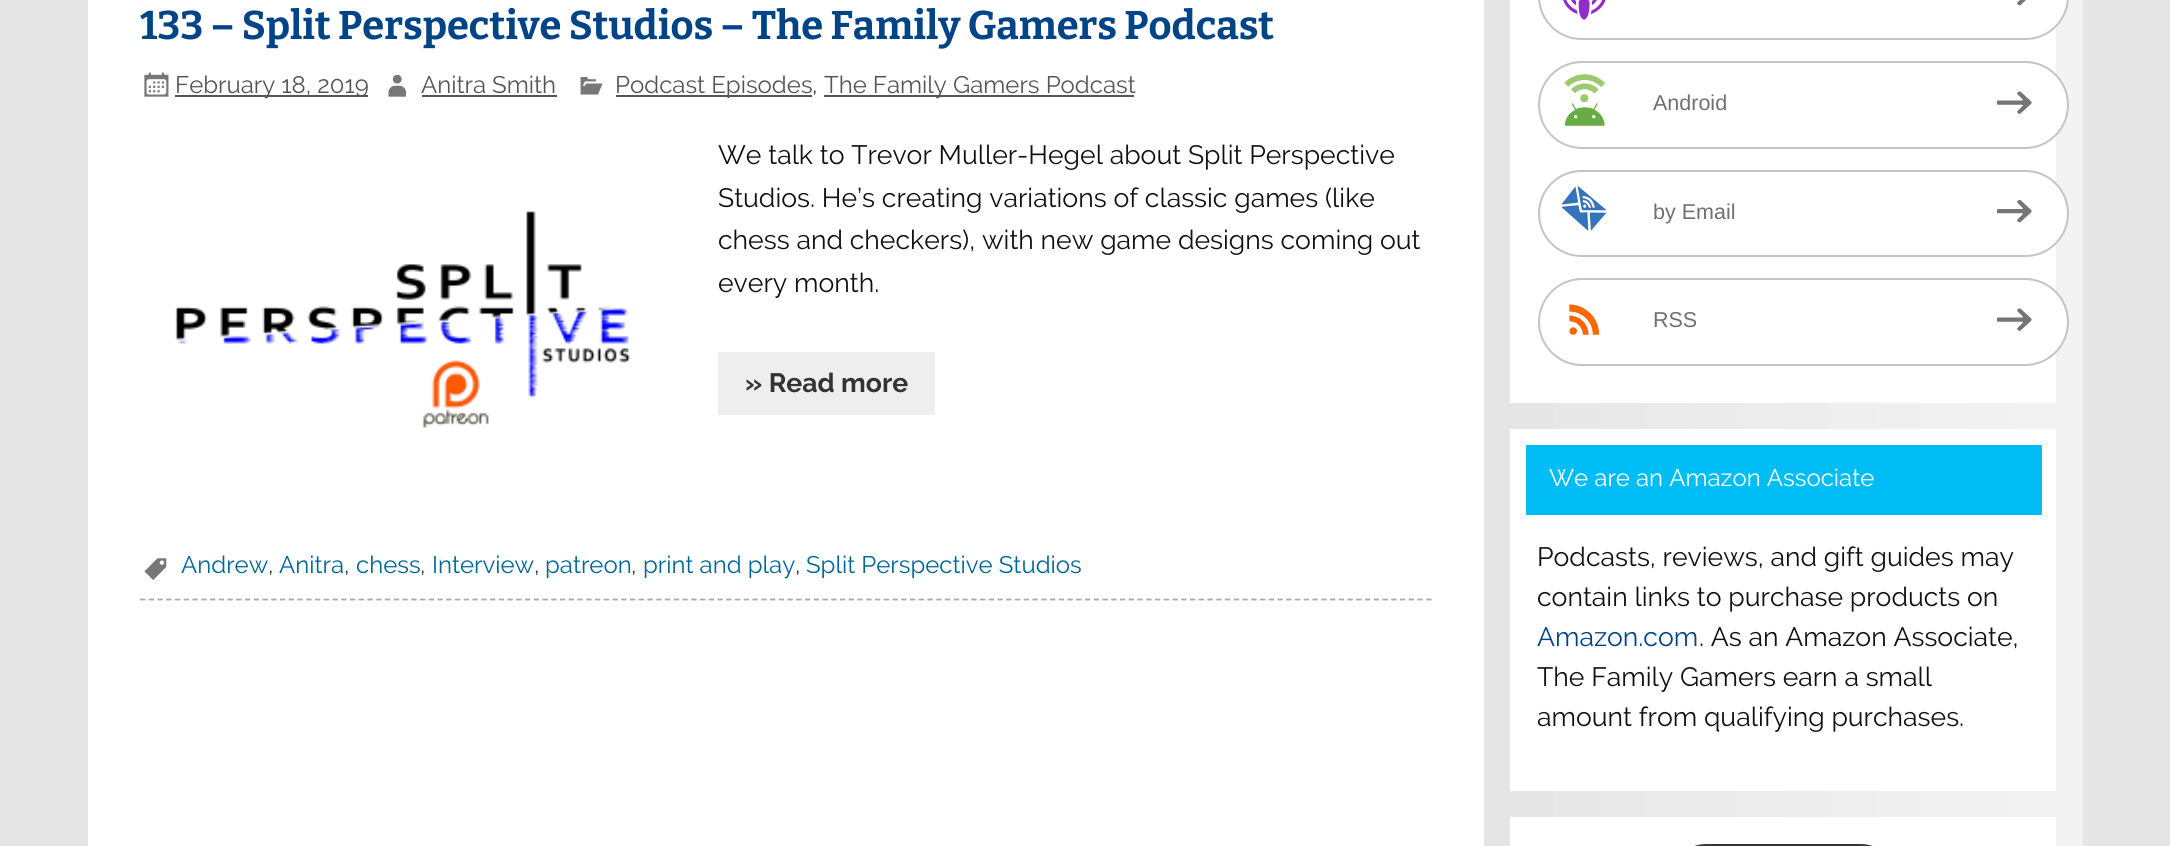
import math
import cairocffi as cairo

surface = cairo.ImageSurface(cairo.FORMAT_RGB24, 2170, 846)
ctx = cairo.Context(surface)
options = cairo.FontOptions()
options.set_hint_metrics(cairo.HINT_METRICS_OFF)
options.set_hint_style(cairo.HINT_STYLE_NONE)
ctx.set_font_options(options)
ctx.set_miter_limit(4)


def rgb(r, g, b):
    ctx.set_source_rgb(r / 255, g / 255, b / 255)


def face(family, size, italic, bold):
    ctx.select_font_face(family, cairo.FONT_SLANT_ITALIC if italic else cairo.FONT_SLANT_NORMAL, cairo.FONT_WEIGHT_BOLD if bold else cairo.FONT_WEIGHT_NORMAL)
    ctx.set_font_size(size)


def label(x, y, s):
    ctx.move_to(x, y)
    ctx.show_text(s)


def rect(x, y, w, h):
    ctx.rectangle(x, y, w, h)
    ctx.fill()


def rrect(x, y, w, h, r):
    ctx.new_sub_path()
    for i, (u, v) in enumerate([(x + w - r, y + h - r), (x + r, y + h - r), (x + r, y + r), (x + w - r, y + r)]):
        ctx.arc(u, v, r, i * math.pi / 2, (i + 1) * math.pi / 2)
    ctx.close_path()


def image(path, x, y, w, h):
    ctx.save()
    ctx.set_source_surface(cairo.ImageSurface.create_from_png(path), x, y)
    ctx.rectangle(x, y, w, h)
    ctx.fill()
    ctx.restore()


rgb(229, 229, 229)
ctx.paint()
rgb(255, 255, 255)
rect(88, 0, 1396, 846)
ctx.new_path()
ctx.move_to(140, 599.5)
ctx.line_to(1431.5, 599.5)
rgb(170, 170, 170)
ctx.set_line_width(1.8)
ctx.set_dash([5.25, 3.5])
ctx.stroke()
face('Bitter', 39.9, 0, 1)
rgb(0, 68, 136)
label(140, 39, '133 – Split Perspective Studios – The Family Gamers Podcast')
image('image0.png', 144, 72, 25, 25)
rgb(85, 85, 85)
rect(175, 95, 193, 2)
face('Raleway', 24, 0, 0)
label(175, 93, 'February 18, 2019')
image('image1.png', 388, 74, 18, 23)
label(421, 93, 'Anitra Smith')
rect(422, 95, 135, 2)
image('image2.png', 580, 77, 23, 18)
rect(616, 95, 196, 2)
label(615, 93, 'Podcast Episodes')
rgb(51, 51, 51)
label(812, 93, ',')
rgb(85, 85, 85)
rect(824, 95, 310, 2)
label(824, 93, 'The Family Gamers Podcast')
image('image3.png', 175, 210, 456, 218)
face('Raleway', 26.6, 0, 0)
rgb(17, 17, 17)
label(718, 164, 'We talk to Trevor Muller-Hegel about Split Perspective')
label(718, 207, 'Studios. He’s creating variations of classic games (like')
label(718, 249, 'chess and checkers), with new game designs coming out')
label(718, 292, 'every month.')
rgb(238, 238, 238)
rect(718, 352, 217, 63)
face('Raleway', 26.6, 0, 1)
rgb(51, 51, 51)
label(745, 392, '» Read more')
image('image4.png', 144, 558, 23, 22)
face('Raleway', 24, 0, 0)
rgb(0, 102, 153)
label(181, 573, 'Andrew')
rgb(51, 51, 51)
label(268, 573, ',')
rgb(0, 102, 153)
label(279, 573, 'Anitra')
rgb(51, 51, 51)
label(344, 573, ',')
rgb(0, 102, 153)
label(356, 573, 'chess')
rgb(51, 51, 51)
label(420, 573, ',')
rgb(0, 102, 153)
label(432, 573, 'Interview')
rgb(51, 51, 51)
label(534, 573, ',')
rgb(0, 102, 153)
label(545, 573, 'patreon')
rgb(51, 51, 51)
label(631, 573, ',')
rgb(0, 102, 153)
label(643, 573, 'print and play')
rgb(51, 51, 51)
label(795, 573, ',')
rgb(0, 102, 153)
label(806, 573, 'Split Perspective Studios')
gradient = cairo.LinearGradient(1484, 418, 2083, 418)
gradient.add_color_stop_rgba(0, 0.902, 0.902, 0.902, 1)
gradient.add_color_stop_rgba(1, 0.953, 0.953, 0.953, 1)
ctx.set_source(gradient)
rect(1553, 0, 530, 846)
rgb(255, 255, 255)
rect(1510, 0, 546, 403)
rrect(1539, -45, 529, 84, 42.5)
ctx.fill_preserve()
rgb(196, 196, 196)
ctx.set_line_width(2)
ctx.set_dash([])
ctx.stroke()
image('image5.png', 1563, 0, 43, 20)
image('image6.png', 2017, 0, 9, 6)
rgb(255, 255, 255)
rrect(1539, 62, 529, 86, 43)
ctx.fill_preserve()
rgb(196, 196, 196)
ctx.stroke()
image('image7.png', 1564, 74, 42, 52)
face('Liberation Sans', 21.5, 0, 0)
rgb(112, 112, 112)
label(1653, 110, 'Android')
image('image8.png', 1997, 91, 35, 23)
rgb(255, 255, 255)
rrect(1539, 171, 529, 85, 42.5)
ctx.fill_preserve()
rgb(196, 196, 196)
ctx.stroke()
image('image9.png', 1561, 186, 45, 45)
rgb(112, 112, 112)
label(1653, 219, 'by Email')
image('image10.png', 1997, 200, 35, 23)
rgb(255, 255, 255)
rrect(1539, 279, 529, 86, 43)
ctx.fill_preserve()
rgb(196, 196, 196)
ctx.stroke()
image('image11.png', 1569, 304, 31, 31)
rgb(112, 112, 112)
label(1653, 327, 'RSS')
image('image8.png', 1997, 308, 35, 23)
rgb(255, 255, 255)
rect(1510, 429, 546, 362)
rgb(0, 190, 245)
rect(1526, 445, 516, 70)
face('Raleway', 24, 0, 0)
rgb(255, 255, 255)
label(1549, 486, 'We are an Amazon Associate')
face('Raleway', 26.6, 0, 0)
rgb(17, 17, 17)
label(1537, 566, 'Podcasts, reviews, and gift guides may')
label(1537, 606, 'contain links to purchase products on')
rgb(0, 68, 136)
label(1537, 646, 'Amazon.com')
rgb(17, 17, 17)
label(1699, 646, '. As an Amazon Associate,')
label(1537, 686, 'The Family Gamers earn a small')
label(1537, 726, 'amount from qualifying purchases.')
rgb(255, 255, 255)
rect(1510, 817, 546, 29)
rgb(50, 55, 60)
rrect(1668, 844, 231, 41, 38.5)
ctx.fill()
surface.write_to_png('render.png')
